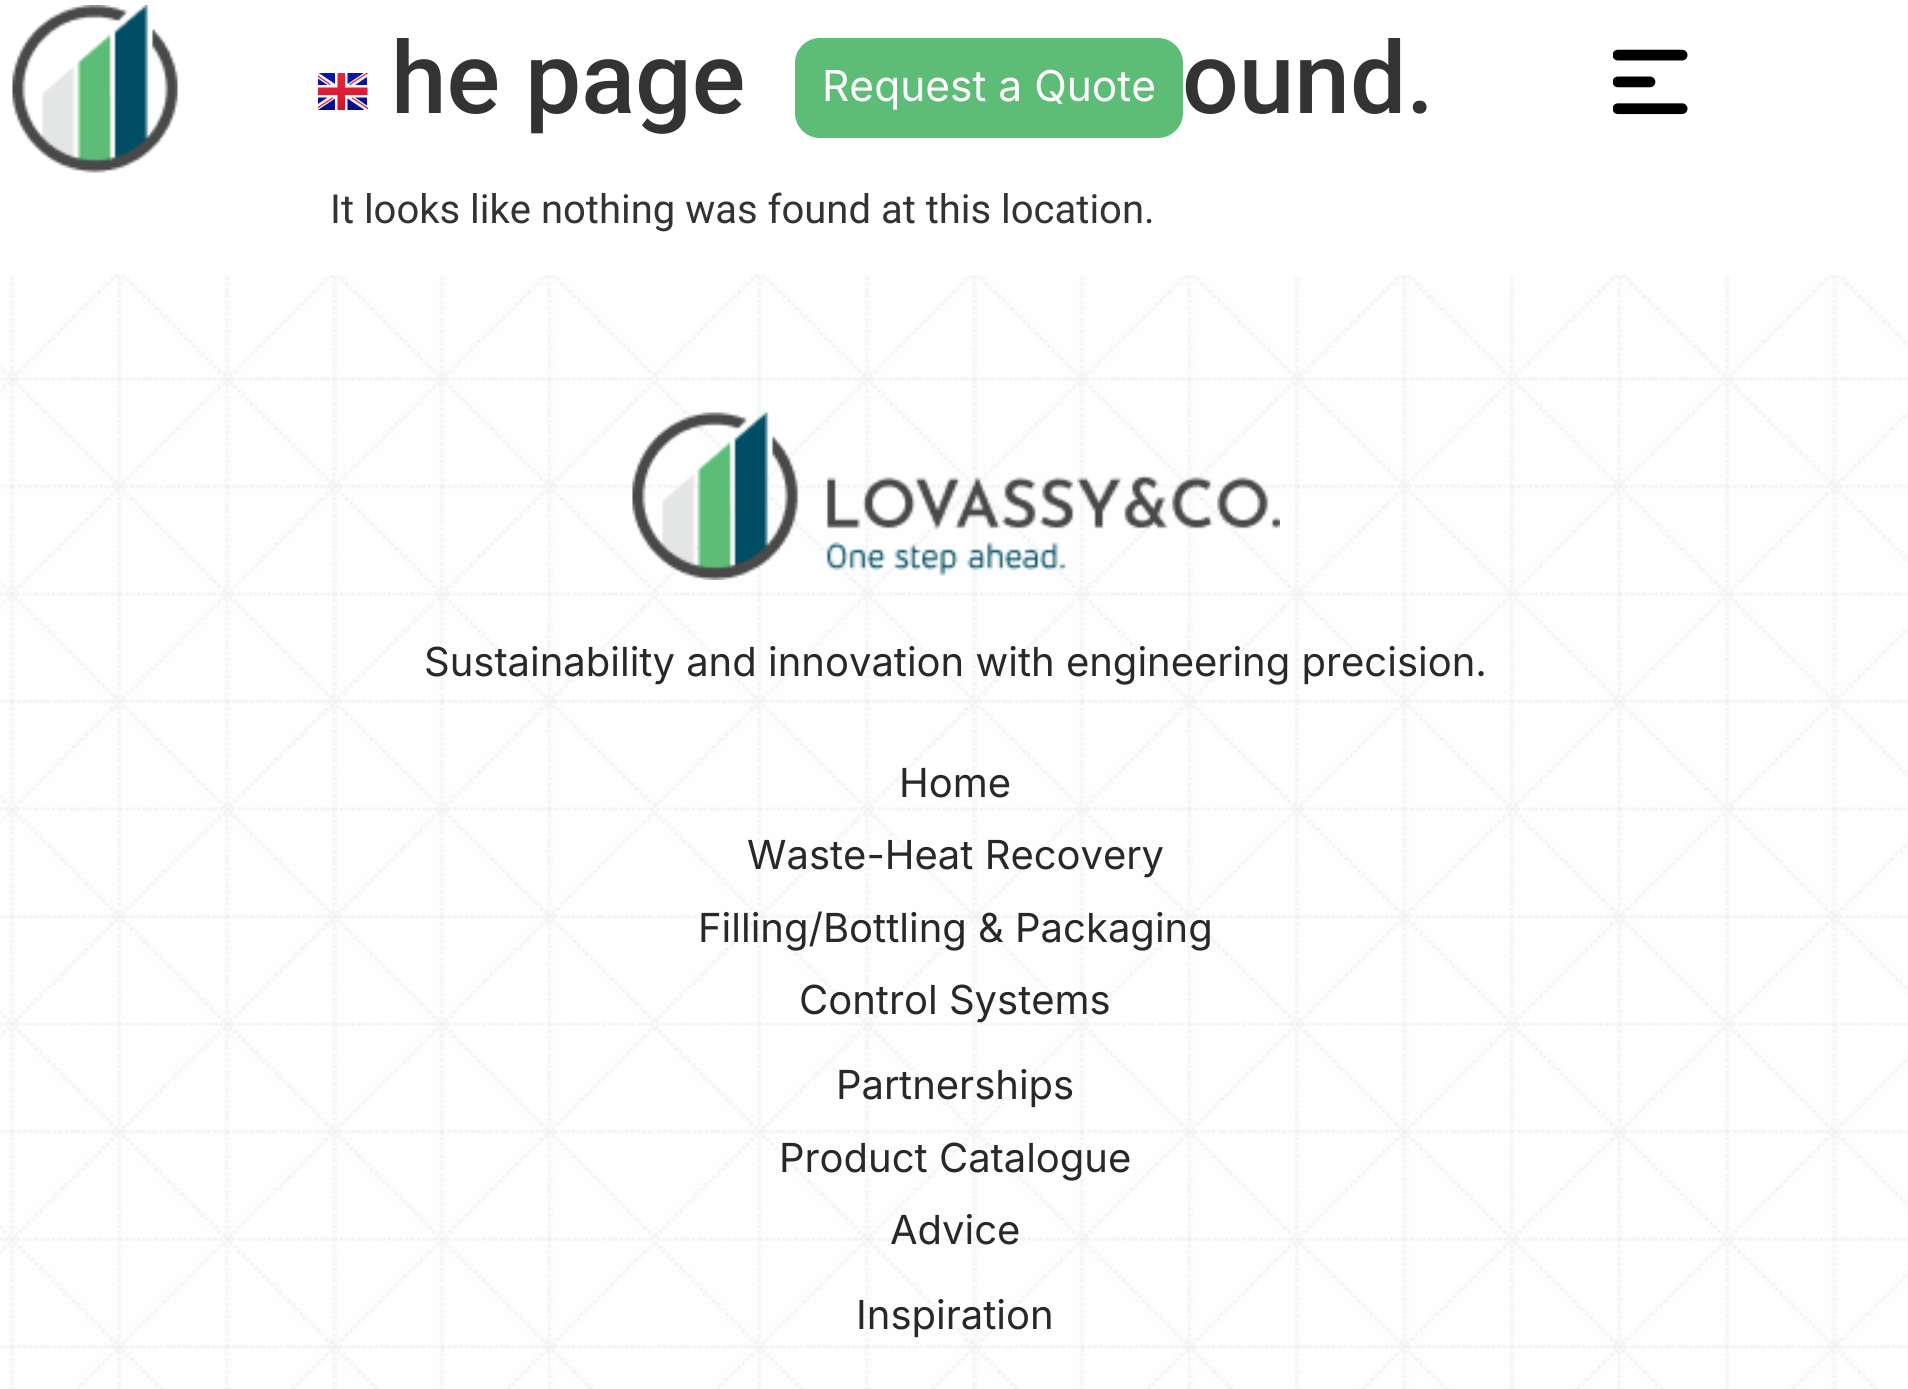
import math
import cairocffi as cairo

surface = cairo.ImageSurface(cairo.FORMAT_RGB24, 1908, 1389)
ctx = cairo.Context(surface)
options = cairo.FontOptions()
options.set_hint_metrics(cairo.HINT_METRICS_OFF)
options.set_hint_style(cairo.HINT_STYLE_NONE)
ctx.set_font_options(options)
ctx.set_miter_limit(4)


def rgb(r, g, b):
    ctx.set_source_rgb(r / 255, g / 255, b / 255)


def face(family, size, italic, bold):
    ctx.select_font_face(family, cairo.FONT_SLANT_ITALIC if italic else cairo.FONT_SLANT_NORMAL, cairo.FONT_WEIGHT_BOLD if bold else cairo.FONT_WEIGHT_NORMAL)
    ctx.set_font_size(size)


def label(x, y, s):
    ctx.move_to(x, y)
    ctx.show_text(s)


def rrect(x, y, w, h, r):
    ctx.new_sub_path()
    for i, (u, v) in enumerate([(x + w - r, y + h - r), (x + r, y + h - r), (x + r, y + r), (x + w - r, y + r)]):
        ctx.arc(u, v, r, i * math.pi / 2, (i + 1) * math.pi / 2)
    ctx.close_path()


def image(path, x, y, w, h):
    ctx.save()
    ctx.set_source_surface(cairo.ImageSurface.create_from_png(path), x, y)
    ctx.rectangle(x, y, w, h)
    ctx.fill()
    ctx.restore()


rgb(255, 255, 255)
ctx.paint()
face('Roboto Medium', 100, 0, 0)
rgb(51, 51, 51)
label(391, 113, 'he page')
label(1182, 113, 'ound.')
face('Roboto', 40, 0, 0)
label(330, 223, 'It looks like nothing was found at this location.')
image('image0.png', 12, 5, 166, 168)
image('image1.png', 318, 73, 50, 37)
rgb(93, 189, 119)
rrect(796.5, 39.5, 385, 97, 23.5)
ctx.fill_preserve()
ctx.set_line_width(3)
ctx.stroke()
face('Inter', 42.5, 0, 0)
rgb(255, 255, 255)
label(822, 101, 'Request a Quote')
image('image2.png', 1613, 49, 75, 66)
image('image3.png', 0, 275, 1908, 1114)
image('image4.png', 632, 412, 648, 168)
face('Inter', 40, 0, 0)
rgb(39, 40, 40)
label(424, 676, 'Sustainability and innovation with engineering precision.')
label(899, 797, 'Home')
label(747, 869, 'Waste-Heat Recovery')
label(698, 942, 'Filling/Bottling & Packaging')
label(799, 1014, 'Control Systems')
label(836, 1099, 'Partnerships')
label(779, 1172, 'Product Catalogue')
label(890, 1244, 'Advice')
label(856, 1329, 'Inspiration')
surface.write_to_png('render.png')
